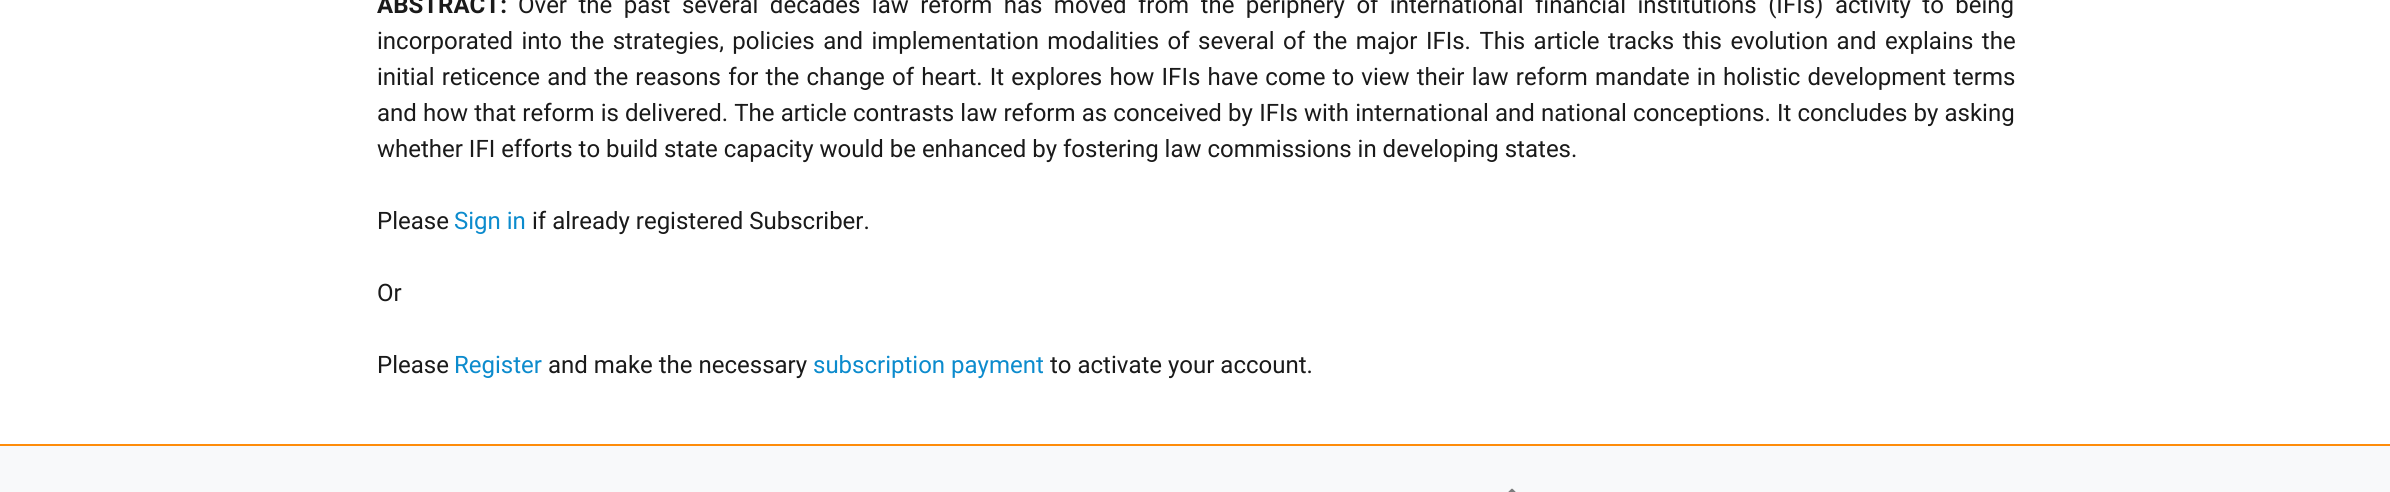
import math
import cairocffi as cairo

surface = cairo.ImageSurface(cairo.FORMAT_RGB24, 2390, 492)
ctx = cairo.Context(surface)
options = cairo.FontOptions()
options.set_hint_metrics(cairo.HINT_METRICS_OFF)
options.set_hint_style(cairo.HINT_STYLE_NONE)
ctx.set_font_options(options)
ctx.set_miter_limit(4)


def rgb(r, g, b):
    ctx.set_source_rgb(r / 255, g / 255, b / 255)


def face(family, size, italic, bold):
    ctx.select_font_face(family, cairo.FONT_SLANT_ITALIC if italic else cairo.FONT_SLANT_NORMAL, cairo.FONT_WEIGHT_BOLD if bold else cairo.FONT_WEIGHT_NORMAL)
    ctx.set_font_size(size)


def label(x, y, s):
    ctx.move_to(x, y)
    ctx.show_text(s)


def tracked(x, y, s, letter, word):
    ctx.move_to(x, y)
    for ch in s:
        ctx.show_text(ch)
        ctx.rel_move_to(letter + word * (ch == ' '), 0)


def rect(x, y, w, h):
    ctx.rectangle(x, y, w, h)
    ctx.fill()


def image(path, x, y, w, h):
    ctx.save()
    ctx.set_source_surface(cairo.ImageSurface.create_from_png(path), x, y)
    ctx.rectangle(x, y, w, h)
    ctx.fill()
    ctx.restore()


rgb(255, 255, 255)
ctx.paint()
face('Roboto', 24, 0, 1)
rgb(26, 26, 26)
label(377, 13, 'ABSTRACT:')
face('Roboto', 24, 0, 0)
tracked(518, 13, 'Over the past several decades law reform has moved from the periphery of international financial institutions (IFIs) activity to being', 0, 5.5)
tracked(377, 49, 'incorporated into the strategies, policies and implementation modalities of several of the major IFIs. This article tracks this evolution and explains the', 0, 2.5)
tracked(377, 85, 'initial reticence and the reasons for the change of heart. It explores how IFIs have come to view their law reform mandate in holistic development terms', 0, 1.25)
tracked(377, 121, 'and how that reform is delivered. The article contrasts law reform as conceived by IFIs with international and national conceptions. It concludes by asking', 0, 0.25)
label(377, 157, 'whether IFI efforts to build state capacity would be enhanced by fostering law commissions in developing states.')
label(377, 229, 'Please')
rgb(12, 139, 205)
label(454, 229, 'Sign in')
rgb(26, 26, 26)
label(532, 229, 'if already registered Subscriber.')
label(377, 301, 'Or')
label(377, 373, 'Please')
rgb(12, 139, 205)
label(454, 373, 'Register')
rgb(26, 26, 26)
label(548, 373, 'and make the necessary')
rgb(12, 139, 205)
label(813, 373, 'subscription payment')
rgb(26, 26, 26)
label(1050, 373, 'to activate your account.')
rgb(248, 249, 250)
rect(0, 446, 2390, 46)
rgb(254, 140, 10)
rect(0, 444, 2390, 2)
image('image0.png', 1508, 488, 8, 4)
surface.write_to_png('render.png')
